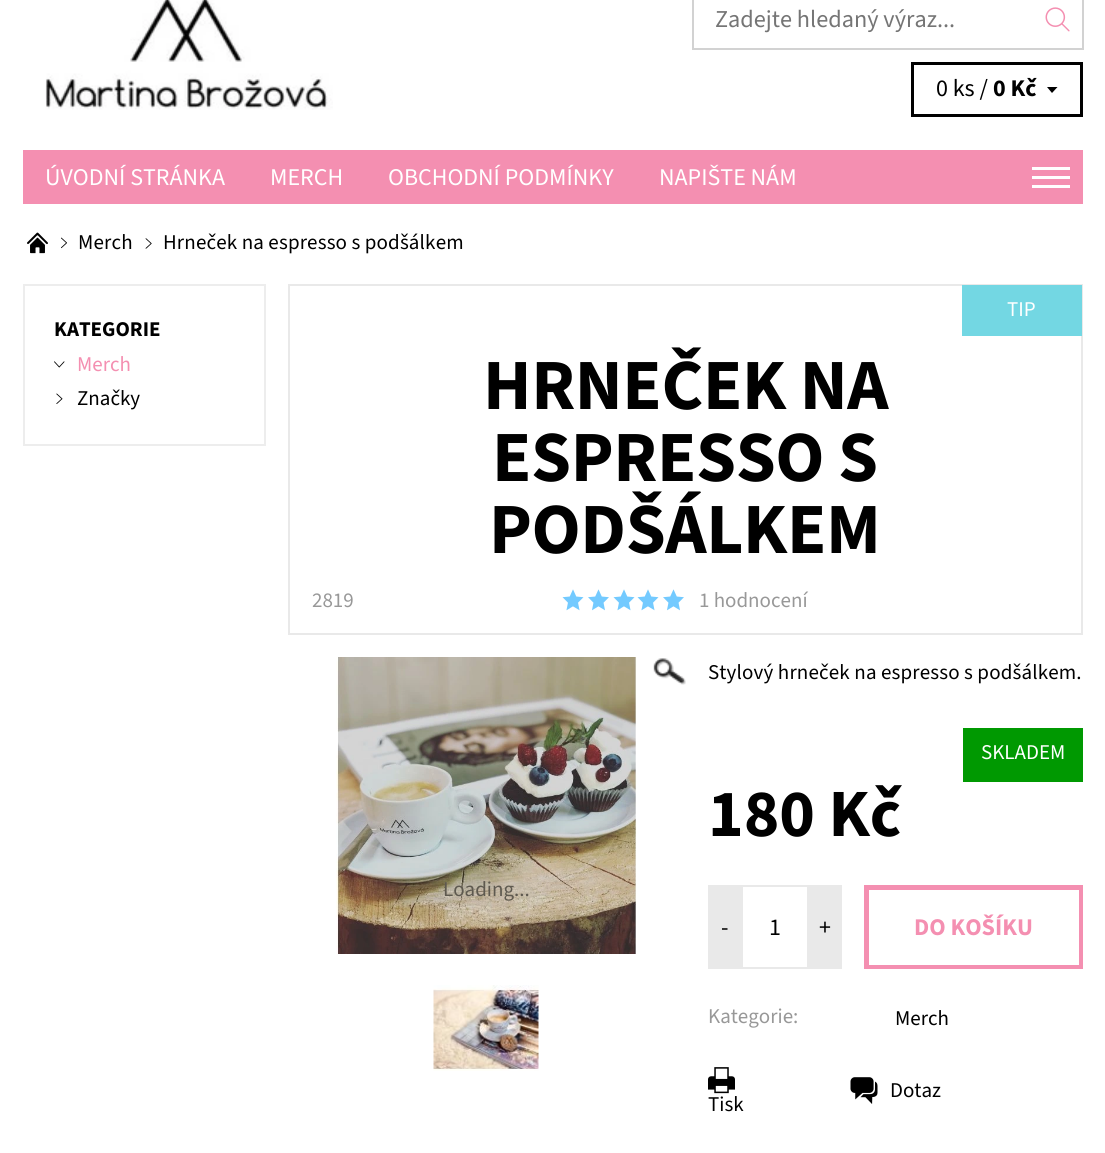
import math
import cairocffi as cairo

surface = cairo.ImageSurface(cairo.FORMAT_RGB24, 1105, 1153)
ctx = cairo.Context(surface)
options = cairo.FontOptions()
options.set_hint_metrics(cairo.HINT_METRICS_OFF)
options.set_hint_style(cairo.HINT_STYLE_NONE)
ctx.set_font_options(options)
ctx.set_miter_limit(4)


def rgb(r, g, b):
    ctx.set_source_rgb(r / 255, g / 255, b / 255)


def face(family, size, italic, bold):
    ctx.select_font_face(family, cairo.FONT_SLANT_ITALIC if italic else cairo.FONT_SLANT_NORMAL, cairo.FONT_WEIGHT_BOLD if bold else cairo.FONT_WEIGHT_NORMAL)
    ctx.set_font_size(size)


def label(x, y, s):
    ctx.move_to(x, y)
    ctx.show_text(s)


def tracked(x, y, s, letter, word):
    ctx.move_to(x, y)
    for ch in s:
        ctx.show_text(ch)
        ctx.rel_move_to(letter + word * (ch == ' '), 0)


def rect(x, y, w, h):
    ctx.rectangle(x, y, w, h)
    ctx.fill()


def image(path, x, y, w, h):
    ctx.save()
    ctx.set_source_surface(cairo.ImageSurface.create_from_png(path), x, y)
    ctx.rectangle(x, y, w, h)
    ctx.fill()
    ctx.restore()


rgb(255, 255, 255)
ctx.paint()
image('image0.png', 45, 0, 288, 110)
rgb(210, 210, 210)
rect(692, 48, 342, 2)
rect(692, 0, 2, 50)
face('Source Sans 3', 24.25, 0, 0)
rgb(117, 117, 117)
label(715, 27, 'Zadejte hledaný výraz...')
rgb(210, 210, 210)
rect(1082, 0, 2, 50)
rect(1034, 48, 49, 2)
image('image1.png', 1045, 7, 25, 25)
ctx.rectangle(912.5, 63.5, 169, 52)
rgb(0, 0, 0)
ctx.set_line_width(3)
ctx.stroke()
face('Source Sans 3', 24, 0, 0)
label(936, 96, '0 ks /')
face('Source Sans 3', 24, 0, 1)
label(993, 96, '0 Kč')
ctx.new_path()
ctx.move_to(1052, 87)
ctx.line_to(1057.5, 87)
ctx.line_to(1052, 93)
ctx.line_to(1047, 87)
ctx.close_path()
ctx.fill()
rgb(244, 143, 177)
rect(23, 150, 1060, 54)
face('Source Sans 3', 24, 0, 0)
rgb(255, 255, 255)
label(45, 185, 'ÚVODNÍ STRÁNKA')
label(270, 185, 'MERCH')
label(388, 185, 'OBCHODNÍ PODMÍNKY')
label(659, 185, 'NAPIŠTE NÁM')
rect(1032, 167, 38, 3)
rect(1032, 176, 38, 3)
rect(1032, 185, 38, 3)
image('image2.png', 27, 232, 21, 22)
image('image3.png', 61, 237, 6, 12)
face('Source Sans 3', 21, 0, 0)
rgb(0, 0, 0)
tracked(78, 249, 'Merch', 0.15, 0)
image('image4.png', 145, 238, 7, 11)
tracked(163, 249, 'Hrneček na espresso s podšálkem', 0.15, 0)
ctx.rectangle(24, 285, 241, 160)
rgb(237, 237, 237)
ctx.set_line_width(2)
ctx.stroke()
face('Source Sans 3', 21, 0, 1)
rgb(0, 0, 0)
label(54, 336, 'KATEGORIE')
image('image5.png', 54, 361, 11, 7)
face('Source Sans 3', 21, 0, 0)
rgb(244, 143, 177)
label(77, 371, 'Merch')
image('image6.png', 56, 393, 7, 11)
rgb(0, 0, 0)
label(77, 405, 'Značky')
ctx.rectangle(289, 285, 793, 349)
rgb(233, 233, 233)
ctx.stroke()
rgb(115, 215, 227)
rect(962, 285, 120, 51)
rgb(255, 255, 255)
label(1007, 316, 'TIP')
face('Source Sans 3', 72, 0, 1)
rgb(0, 0, 0)
tracked(483, 409, 'HRNEČEK NA', -0.4, 0)
tracked(492, 481, 'ESPRESSO S', -0.4, 0)
tracked(489, 553, 'PODŠÁLKEM', -0.4, 0)
face('Source Sans 3', 21, 0, 0)
rgb(152, 152, 152)
label(312, 607, '2819')
image('image7.png', 562, 589, 22, 22)
image('image8.png', 588, 589, 21, 22)
image('image7.png', 613, 589, 22, 22)
image('image7.png', 637, 589, 22, 22)
image('image8.png', 663, 589, 21, 22)
label(699, 607, '1 hodnocení')
image('image9.png', 653, 658, 33, 27)
image('image10.png', 336, 657, 301, 297)
rgb(94, 89, 79)
label(443, 896, 'Loading...')
image('image11.png', 433, 985, 106, 86)
rgb(0, 0, 0)
tracked(708, 679, 'Stylový hrneček na espresso s podšálkem.', 0.15, 0)
rgb(0, 153, 1)
rect(963, 728, 120, 54)
rgb(255, 255, 255)
label(981, 759, 'SKLADEM')
face('Source Sans 3', 67.5, 0, 1)
rgb(0, 0, 0)
label(708, 836, '180 Kč')
rgb(233, 233, 233)
rect(708, 885, 33, 84)
face('Source Sans 3', 24, 0, 0)
rgb(0, 0, 0)
label(721, 935, '-')
ctx.rectangle(742, 886, 66, 82)
rgb(233, 233, 233)
ctx.stroke()
rgb(0, 0, 0)
label(769, 935, '1')
rgb(233, 233, 233)
rect(809, 885, 33, 84)
rgb(0, 0, 0)
label(819, 935, '+')
ctx.rectangle(867.5, 888.5, 213, 78)
rgb(244, 143, 177)
ctx.set_line_width(3)
ctx.stroke()
ctx.rectangle(865, 886, 217, 82)
ctx.set_line_width(2)
ctx.stroke()
face('Source Sans 3', 24, 0, 1)
label(914, 935, 'DO KOŠÍKU')
face('Source Sans 3', 21, 0, 0)
rgb(152, 152, 152)
label(708, 1023, 'Kategorie:')
rgb(0, 0, 0)
label(895, 1025, 'Merch')
image('image12.png', 850, 1077, 28, 27)
label(890, 1097, 'Dotaz')
image('image13.png', 708, 1067, 27, 27)
label(708, 1111, 'Tisk')
surface.write_to_png('render.png')
